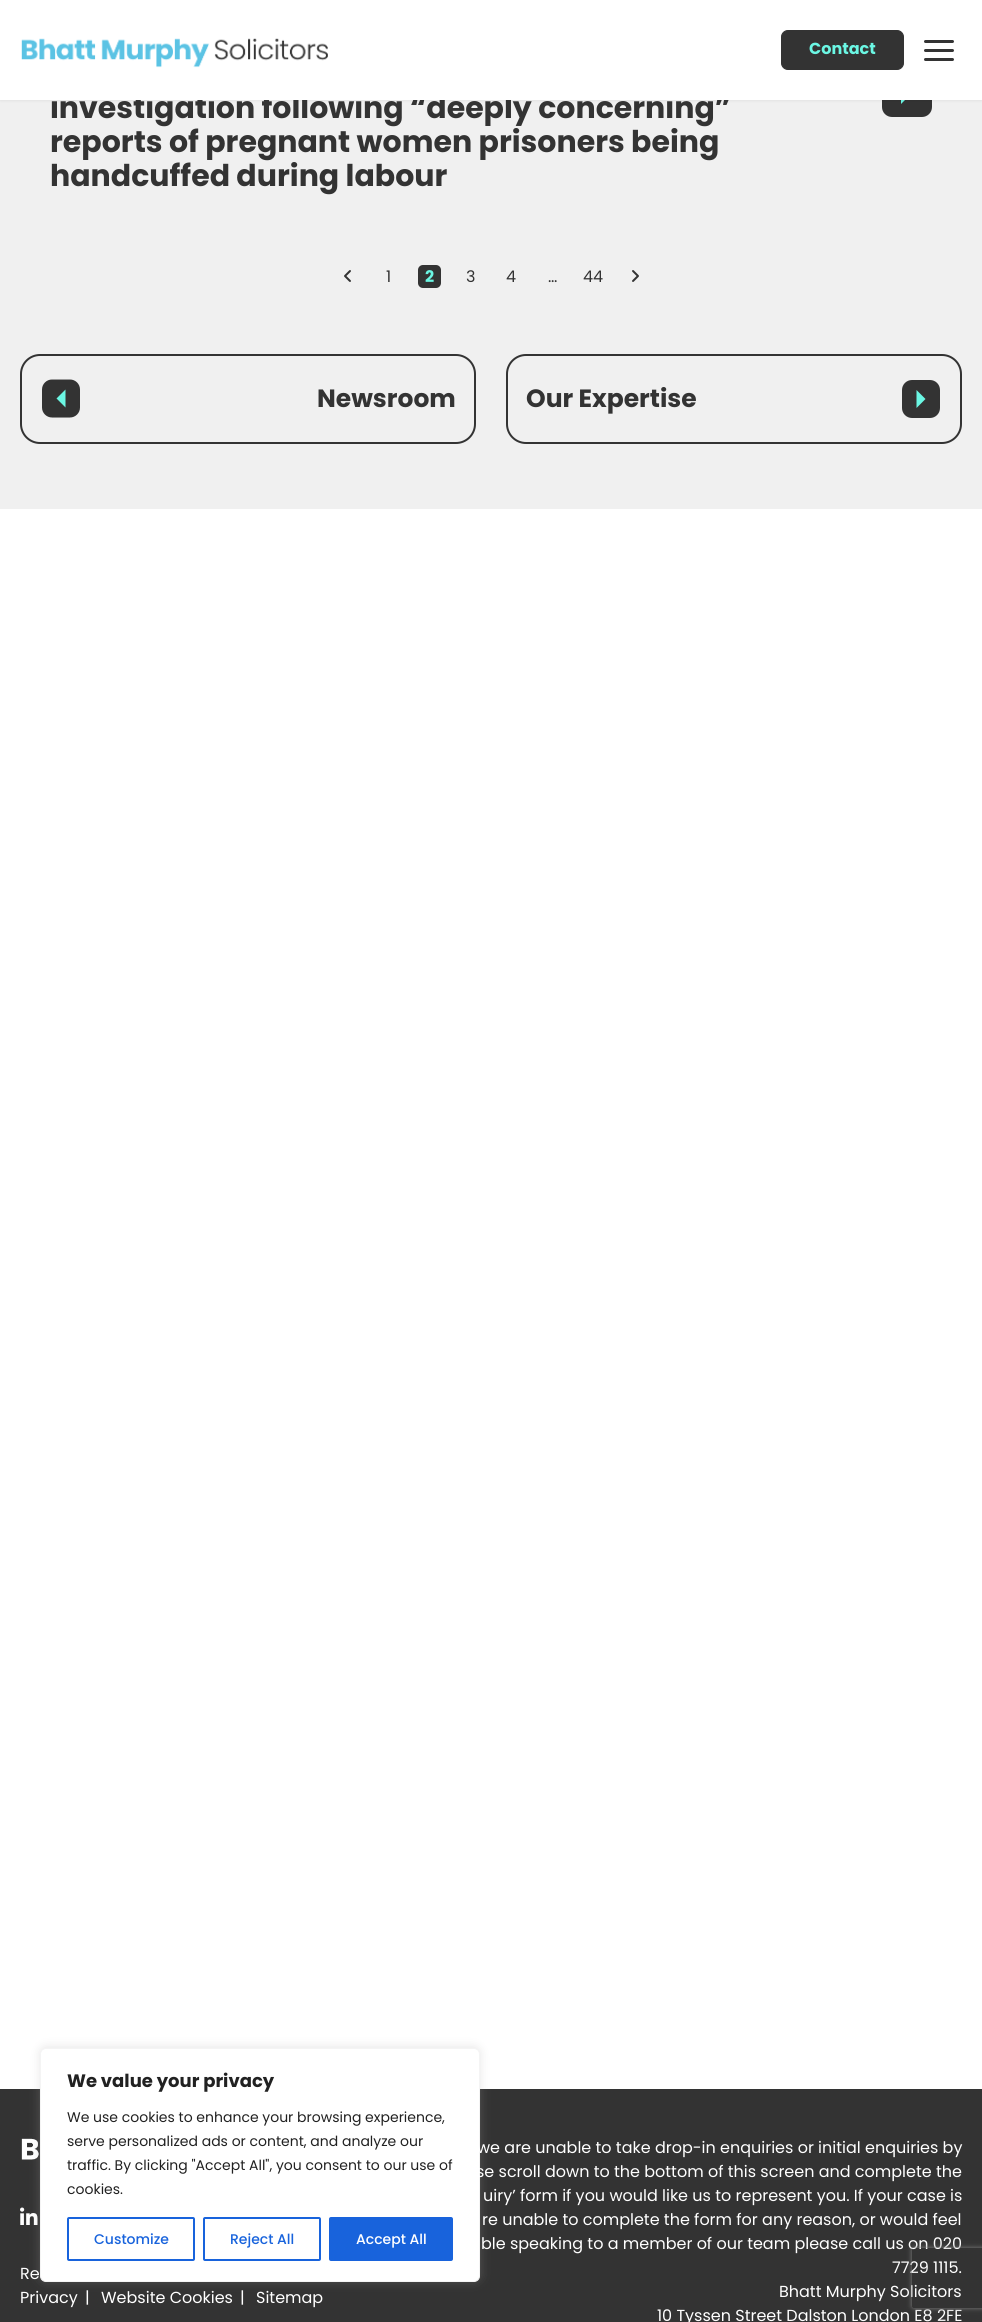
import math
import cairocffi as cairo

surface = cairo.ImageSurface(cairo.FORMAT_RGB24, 982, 2322)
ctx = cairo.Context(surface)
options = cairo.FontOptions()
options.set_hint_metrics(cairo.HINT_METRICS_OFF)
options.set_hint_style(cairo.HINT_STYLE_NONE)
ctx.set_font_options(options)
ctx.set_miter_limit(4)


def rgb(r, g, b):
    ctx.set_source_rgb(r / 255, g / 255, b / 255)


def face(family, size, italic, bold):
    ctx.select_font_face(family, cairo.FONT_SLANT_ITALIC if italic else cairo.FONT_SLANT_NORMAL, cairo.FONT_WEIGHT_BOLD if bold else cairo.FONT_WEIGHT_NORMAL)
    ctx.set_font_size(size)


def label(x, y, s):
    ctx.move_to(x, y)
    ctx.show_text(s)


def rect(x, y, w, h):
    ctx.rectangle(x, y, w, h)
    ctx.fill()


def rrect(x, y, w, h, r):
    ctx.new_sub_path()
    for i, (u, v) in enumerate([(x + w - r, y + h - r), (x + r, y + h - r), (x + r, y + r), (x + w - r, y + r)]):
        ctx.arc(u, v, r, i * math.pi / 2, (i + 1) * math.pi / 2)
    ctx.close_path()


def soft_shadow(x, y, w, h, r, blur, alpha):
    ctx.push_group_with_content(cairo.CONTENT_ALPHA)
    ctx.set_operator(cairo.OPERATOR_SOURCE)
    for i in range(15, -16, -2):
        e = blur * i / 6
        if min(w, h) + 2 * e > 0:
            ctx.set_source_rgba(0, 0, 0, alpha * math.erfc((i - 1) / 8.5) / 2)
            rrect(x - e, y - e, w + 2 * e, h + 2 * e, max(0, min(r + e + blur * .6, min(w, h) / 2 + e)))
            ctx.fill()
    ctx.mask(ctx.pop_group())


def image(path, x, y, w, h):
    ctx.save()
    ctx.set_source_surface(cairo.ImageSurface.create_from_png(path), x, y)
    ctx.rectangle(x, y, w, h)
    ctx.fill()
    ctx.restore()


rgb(240, 240, 240)
ctx.paint()
rgb(51, 51, 51)
rrect(882, 67, 50, 50, 10)
ctx.fill()
rgb(107, 247, 228)
ctx.new_path()
ctx.move_to(901, 104)
ctx.line_to(901, 80)
ctx.line_to(913, 92)
ctx.close_path()
ctx.fill()
rgb(0, 0, 0)
soft_shadow(0, 0, 982, 100, 0, 1.5, 0.1)
face('Poppins', 30, 0, 1)
rgb(51, 51, 51)
label(50, 118, 'investigation following “deeply concerning”')
rgb(255, 255, 255)
rect(0, 0, 982, 100)
image('image0.png', 21, 38, 307, 30)
rgb(51, 51, 51)
rrect(781.5, 30.5, 122, 39, 6.5)
ctx.fill_preserve()
ctx.set_line_width(1)
ctx.stroke()
face('Poppins', 16, 0, 1)
rgb(107, 247, 228)
label(809, 54, 'Contact')
rgb(51, 51, 51)
rrect(924, 49, 30, 3, 1.5)
ctx.fill()
rrect(924, 40, 30, 3, 1.5)
ctx.fill()
rrect(924, 58, 30, 3, 1.5)
ctx.fill()
face('Poppins', 30, 0, 1)
label(50, 152, 'reports of pregnant women prisoners being')
label(50, 186, 'handcuffed during labour')
image('image1.png', 344, 270, 7, 12)
face('Poppins', 16, 0, 0)
label(386, 282, '1')
rrect(418, 265, 23, 23, 5)
ctx.fill()
face('Poppins', 16, 0, 1)
rgb(107, 247, 228)
label(425, 282, '2')
face('Poppins', 16, 0, 0)
rgb(51, 51, 51)
label(466, 282, '3')
label(506, 282, '4')
label(548, 282, '…')
label(583, 282, '44')
image('image2.png', 632, 270, 7, 12)
rrect(21, 355, 454, 88, 19)
ctx.set_line_width(2)
ctx.stroke()
ctx.new_path()
ctx.move_to(70, 379.5)
ctx.line_to(52, 379.5)
ctx.curve_to(46.5, 379.5, 42, 384, 42, 389.5)
ctx.line_to(42, 407.5)
ctx.curve_to(42, 413, 46.5, 417.5, 52, 417.5)
ctx.line_to(70, 417.5)
ctx.curve_to(75.5, 417.5, 80, 413, 80, 407.5)
ctx.line_to(80, 389.5)
ctx.curve_to(80, 384, 75.5, 379.5, 70, 379.5)
ctx.close_path()
ctx.fill()
rgb(107, 247, 228)
ctx.new_path()
ctx.move_to(65.5, 407.5)
ctx.line_to(65.5, 389.5)
ctx.line_to(56.5, 398.5)
ctx.close_path()
ctx.fill()
face('Poppins', 25, 0, 1)
rgb(51, 51, 51)
label(317, 407, 'Newsroom')
rrect(507, 355, 454, 88, 19)
ctx.stroke()
label(526, 407, 'Our Expertise')
rrect(902, 380, 38, 38, 10)
ctx.fill()
rgb(107, 247, 228)
ctx.new_path()
ctx.move_to(916.5, 408)
ctx.line_to(916.5, 390)
ctx.line_to(925.5, 399)
ctx.close_path()
ctx.fill()
rgb(255, 255, 255)
rect(0, 509, 982, 1580)
rgb(51, 51, 51)
rect(0, 2089, 982, 233)
image('image3.png', 21, 2138, 18, 22)
image('image4.png', 20, 2207, 18, 18)
rgb(172, 171, 171)
soft_shadow(40, 2047, 440, 234, 6, 5, 0.3)
rgb(255, 255, 255)
rrect(40.5, 2048.5, 439, 233, 5.5)
ctx.fill_preserve()
rgb(244, 244, 244)
ctx.set_line_width(1)
ctx.stroke()
face('Poppins', 18, 0, 1)
rgb(33, 33, 33)
label(67, 2087, 'We value your privacy')
face('Poppins', 14, 0, 0)
label(67, 2122, 'We use cookies to enhance your browsing experience,')
label(67, 2146, 'serve personalized ads or content, and analyze our')
label(67, 2170, 'traffic. By clicking "Accept All", you consent to our use of')
label(67, 2194, 'cookies.')
rrect(68, 2218, 126, 42, 1)
rgb(24, 99, 220)
ctx.set_line_width(2)
ctx.stroke()
face('Poppins Medium', 14, 0, 0)
label(94, 2244, 'Customize')
rrect(204, 2218, 116, 42, 1)
ctx.stroke()
label(230, 2244, 'Reject All')
rrect(330, 2218, 122, 42, 1)
ctx.fill_preserve()
ctx.stroke()
rgb(255, 255, 255)
label(356, 2244, 'Accept All')
face('Poppins', 16, 0, 0)
label(20, 2279, 'Re')
label(20, 2303, 'Privacy')
label(85, 2303, '|')
label(101, 2303, 'Website Cookies')
label(240, 2303, '|')
label(256, 2303, 'Sitemap')
label(477, 2153, 'we are unable to take drop-in enquiries or initial enquiries by')
label(476, 2177, 'se scroll down to the bottom of this screen and complete the')
label(483, 2201, 'uiry’ form if you would like us to represent you. If your case is')
label(482, 2225, 're unable to complete the form for any reason, or would feel')
label(481, 2249, 'ble speaking to a member of our team please call us on 020')
label(892, 2273, '7729 1115.')
label(779, 2297, 'Bhatt Murphy Solicitors')
label(657, 2321, '10 Tyssen Street Dalston London E8 2FE')
ctx.save()
ctx.set_fill_rule(cairo.FILL_RULE_EVEN_ODD)
ctx.new_path()
ctx.move_to(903, 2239)
ctx.line_to(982, 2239)
ctx.line_to(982, 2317)
ctx.line_to(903, 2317)
ctx.close_path()
ctx.move_to(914, 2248)
ctx.line_to(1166, 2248)
ctx.curve_to(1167, 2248, 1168, 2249, 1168, 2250)
ctx.line_to(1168, 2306)
ctx.curve_to(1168, 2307, 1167, 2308, 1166, 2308)
ctx.line_to(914, 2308)
ctx.curve_to(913, 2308, 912, 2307, 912, 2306)
ctx.line_to(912, 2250)
ctx.curve_to(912, 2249, 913, 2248, 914, 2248)
ctx.close_path()
ctx.clip()
rgb(128, 128, 128)
soft_shadow(912, 2248, 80, 60, 2, 2.5, 1)
ctx.restore()
surface.write_to_png('render.png')
